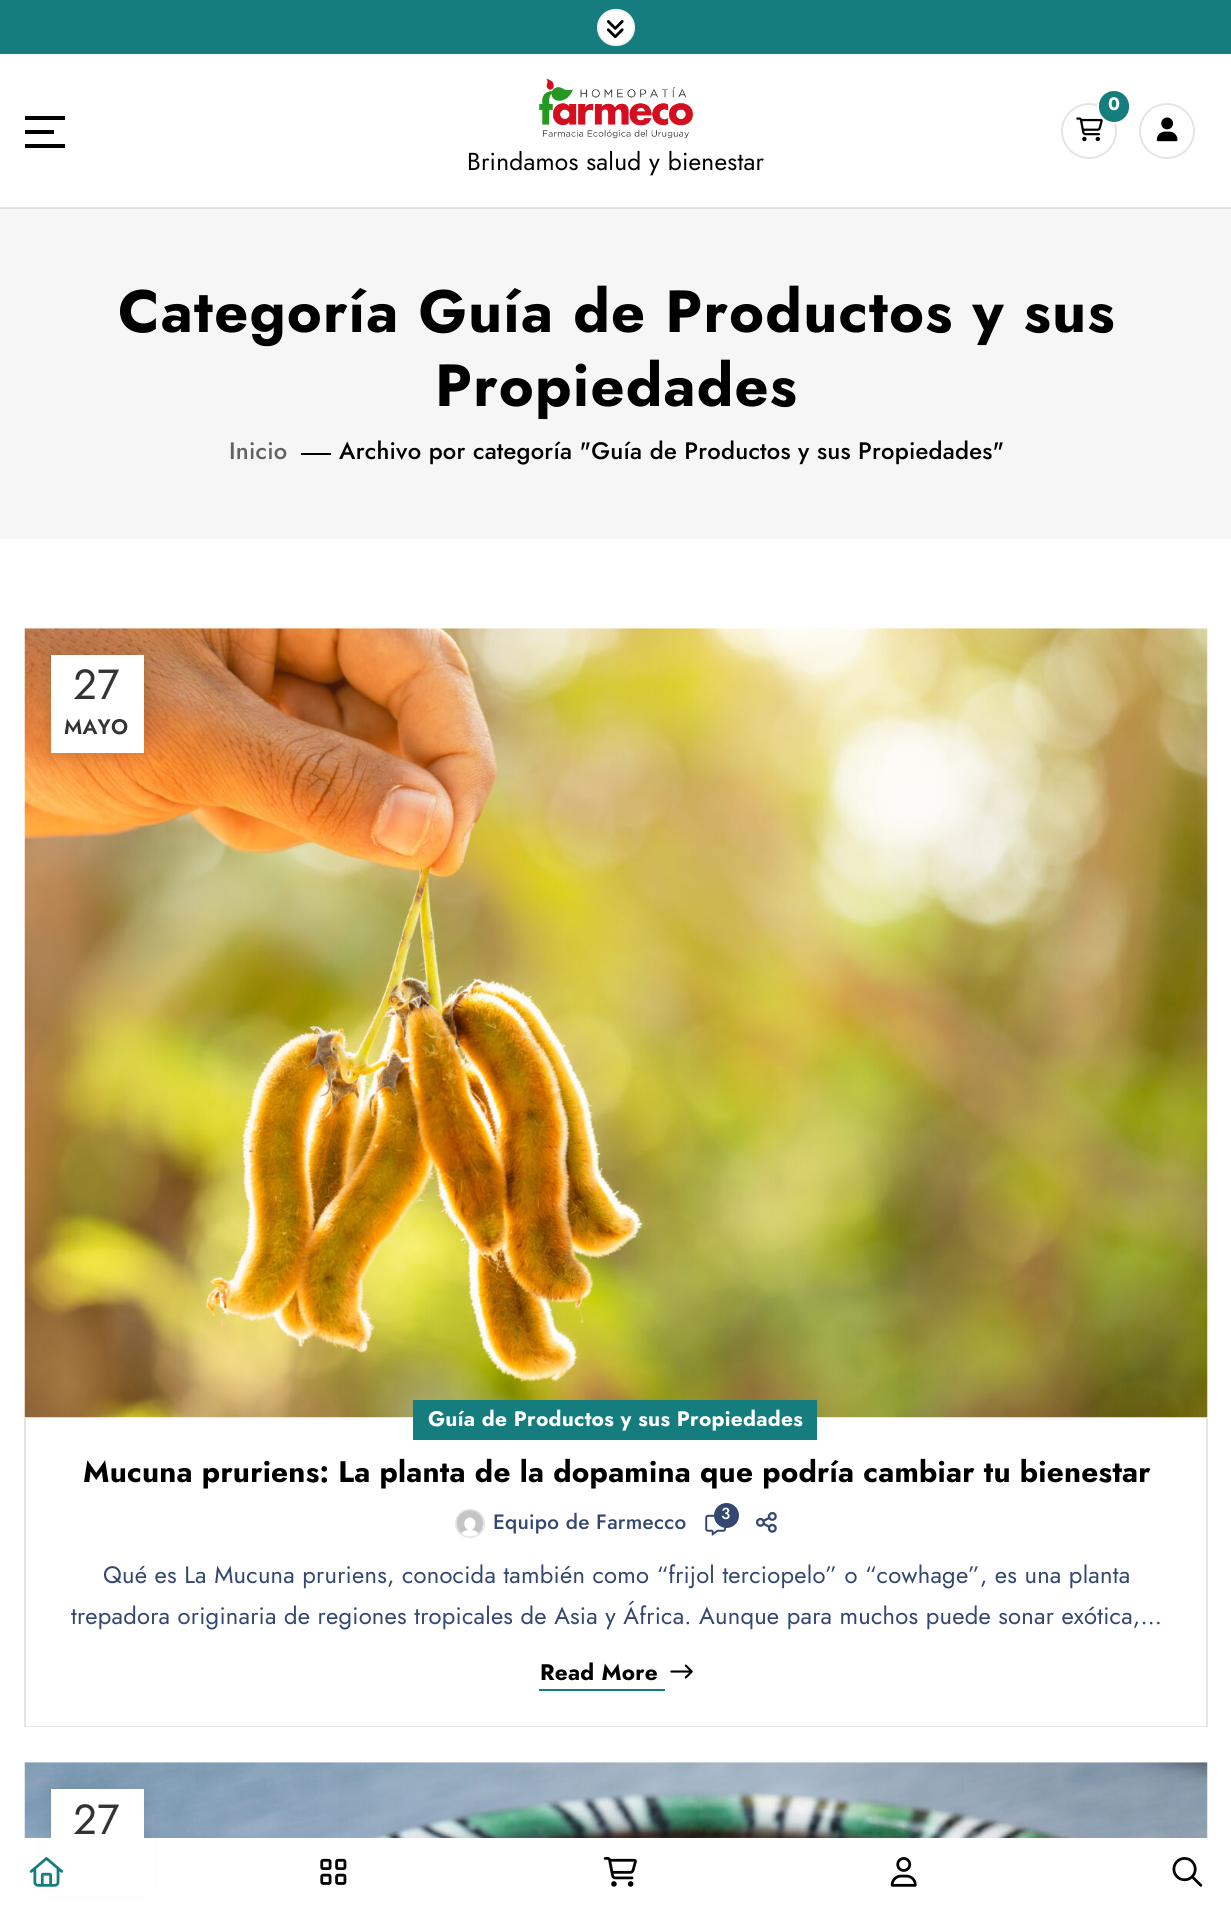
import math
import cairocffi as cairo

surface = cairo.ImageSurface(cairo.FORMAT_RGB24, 1231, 1909)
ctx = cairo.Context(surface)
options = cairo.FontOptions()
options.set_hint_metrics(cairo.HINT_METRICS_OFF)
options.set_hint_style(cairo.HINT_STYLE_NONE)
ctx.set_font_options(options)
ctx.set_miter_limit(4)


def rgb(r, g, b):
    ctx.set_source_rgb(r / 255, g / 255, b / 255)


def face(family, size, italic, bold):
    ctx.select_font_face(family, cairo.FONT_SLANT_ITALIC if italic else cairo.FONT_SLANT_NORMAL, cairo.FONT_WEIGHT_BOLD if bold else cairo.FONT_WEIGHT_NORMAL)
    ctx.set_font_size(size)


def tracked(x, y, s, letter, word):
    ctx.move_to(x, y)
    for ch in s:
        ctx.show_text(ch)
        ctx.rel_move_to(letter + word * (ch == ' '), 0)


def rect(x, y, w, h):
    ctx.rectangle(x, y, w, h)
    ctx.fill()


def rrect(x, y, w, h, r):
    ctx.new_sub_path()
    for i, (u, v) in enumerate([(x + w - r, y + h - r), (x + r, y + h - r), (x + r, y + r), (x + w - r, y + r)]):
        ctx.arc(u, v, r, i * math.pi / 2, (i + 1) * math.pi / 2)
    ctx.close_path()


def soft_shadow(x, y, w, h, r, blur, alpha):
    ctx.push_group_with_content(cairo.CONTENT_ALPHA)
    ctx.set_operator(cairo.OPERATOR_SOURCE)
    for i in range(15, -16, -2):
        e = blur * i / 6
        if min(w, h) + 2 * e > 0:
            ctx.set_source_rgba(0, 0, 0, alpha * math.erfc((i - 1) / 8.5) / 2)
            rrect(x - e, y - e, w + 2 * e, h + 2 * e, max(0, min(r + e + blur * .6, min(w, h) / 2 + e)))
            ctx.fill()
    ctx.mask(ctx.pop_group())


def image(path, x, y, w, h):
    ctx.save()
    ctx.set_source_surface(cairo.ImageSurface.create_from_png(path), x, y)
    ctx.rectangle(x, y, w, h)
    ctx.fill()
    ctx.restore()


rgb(255, 255, 255)
ctx.paint()
rgb(229, 229, 229)
rect(0, 207, 1231, 1)
rgb(22, 125, 127)
rect(0, 0, 1231, 54)
rgb(255, 255, 255)
rrect(597, 9, 38, 37, 18.5)
ctx.fill()
rrect(598, 10, 36, 35, 17.5)
ctx.set_source_rgba(0.741, 0.741, 0.741, 0.2)
ctx.stroke()
image('image0.png', 606, 20, 18, 19)
image('image1.png', 1076, 117, 27, 25)
ctx.arc(1089, 131, 27, 0, 2 * math.pi)
rgb(229, 229, 229)
ctx.stroke()
rgb(22, 125, 127)
rrect(1098, 90, 32, 33, 16)
ctx.fill_preserve()
rgb(255, 255, 255)
ctx.stroke()
face('Jost', 18, 0, 1)
tracked(1108, 110, '0', 0.24, 0)
image('image2.png', 1156, 117, 22, 25)
ctx.arc(1167, 131, 27, 0, 2 * math.pi)
rgb(229, 229, 229)
ctx.stroke()
rgb(0, 0, 0)
rect(25, 116, 40, 4)
rect(25, 130, 29, 4)
rect(25, 144, 40, 4)
image('image3.png', 539, 78, 154, 61)
face('Jost', 24.5, 0, 0)
tracked(467, 170, 'Brindamos salud y bienestar', 0.24, 0)
rgb(246, 246, 246)
rect(0, 209, 1231, 330)
rgb(223, 223, 223)
rect(0, 208, 1231, 1)
face('Jost', 59.4, 0, 1)
rgb(0, 0, 0)
tracked(118, 332, 'Categoría Guía de Productos y sus', 1.2, 0)
tracked(435, 406, 'Propiedades', 1.2, 0)
face('Jost Medium', 23.75, 0, 0)
rgb(98, 98, 98)
tracked(229, 459, 'Inicio', 0.24, 0)
rgb(0, 0, 0)
rect(301, 453, 30, 2)
tracked(339, 459, 'Archivo por categoría "Guía de Productos y sus Propiedades"', 0.24, 0)
image('image4.png', 24, 628, 1184, 790)
rgb(0, 0, 0)
soft_shadow(51, 655, 93, 98, 0, 8, 0.1)
rgb(255, 255, 255)
rect(51, 655, 93, 98)
face('Jost', 42, 0, 0)
rgb(51, 51, 51)
tracked(73, 699, '27', 0.24, 0)
face('Jost SemiBold', 21, 0, 0)
tracked(64, 734, 'MAYO', 0.24, 0)
rgb(229, 229, 229)
ctx.new_path()
ctx.move_to(1208, 1418)
ctx.line_to(1208, 1727)
ctx.line_to(1206, 1726)
ctx.line_to(1206, 1418)
ctx.close_path()
ctx.fill()
ctx.set_source_rgba(0.741, 0.741, 0.741, 0.4)
ctx.new_path()
ctx.move_to(1208, 1727)
ctx.line_to(24, 1727)
ctx.line_to(26, 1726)
ctx.line_to(1206, 1726)
ctx.close_path()
ctx.fill()
ctx.new_path()
ctx.move_to(24, 1727)
ctx.line_to(24, 1418)
ctx.line_to(26, 1418)
ctx.line_to(26, 1726)
ctx.close_path()
ctx.fill()
rgb(22, 125, 127)
rect(413, 1400, 404, 40)
face('Jost', 21, 0, 1)
rgb(255, 255, 255)
tracked(428, 1426, 'Guía de Productos y sus Propiedades', 0.24, 0)
face('Jost', 29.7, 0, 1)
rgb(0, 0, 0)
tracked(83, 1482, 'Mucuna pruriens: La planta de la dopamina que podría cambiar tu bienestar', 0.24, -0.1)
rrect(456, 1510, 28, 27, 13.5)
rgb(229, 229, 229)
ctx.stroke()
image('image5.png', 457, 1510, 26, 27)
face('Jost Medium', 20.75, 0, 0)
rgb(51, 71, 112)
tracked(493, 1529, 'Equipo de Farmecco', 0.24, 0)
image('image6.png', 705, 1514, 22, 22)
ctx.arc(726.5, 1515.5, 12.5, 0, 2 * math.pi)
ctx.fill()
face('Jost Medium', 16, 0, 0)
rgb(255, 255, 255)
tracked(721, 1519, '3', 0.24, 0)
image('image7.png', 756, 1512, 21, 21)
face('Jost', 23.75, 0, 0)
rgb(51, 71, 112)
tracked(103, 1583, 'Qué es La Mucuna pruriens, conocida también como “frijol terciopelo” o “cowhage”, es una planta', 0.24, 0)
tracked(71, 1624, 'trepadora originaria de regiones tropicales de Asia y África. Aunque para muchos puede sonar exótica,…', 0.24, 0)
face('Jost', 22.5, 0, 1)
rgb(0, 0, 0)
tracked(540, 1680, 'Read More', 0.24, 0)
image('image8.png', 670, 1664, 23, 15)
rgb(22, 125, 127)
rect(539, 1689, 126, 2)
image('image9.png', 24, 1762, 1184, 76)
rgb(0, 0, 0)
soft_shadow(51, 1789, 93, 98, 0, 8, 0.1)
rgb(255, 255, 255)
rect(51, 1789, 93, 49)
face('Jost', 42, 0, 0)
rgb(51, 51, 51)
tracked(73, 1834, '27', 0.24, 0)
rgb(255, 255, 255)
rect(41, 1838, 113, 59)
image('image10.png', 29, 1857, 35, 30)
image('image11.png', 320, 1858, 27, 27)
image('image12.png', 603, 1857, 34, 30)
image('image13.png', 890, 1857, 27, 30)
image('image14.png', 1172, 1857, 31, 30)
surface.write_to_png('render.png')
